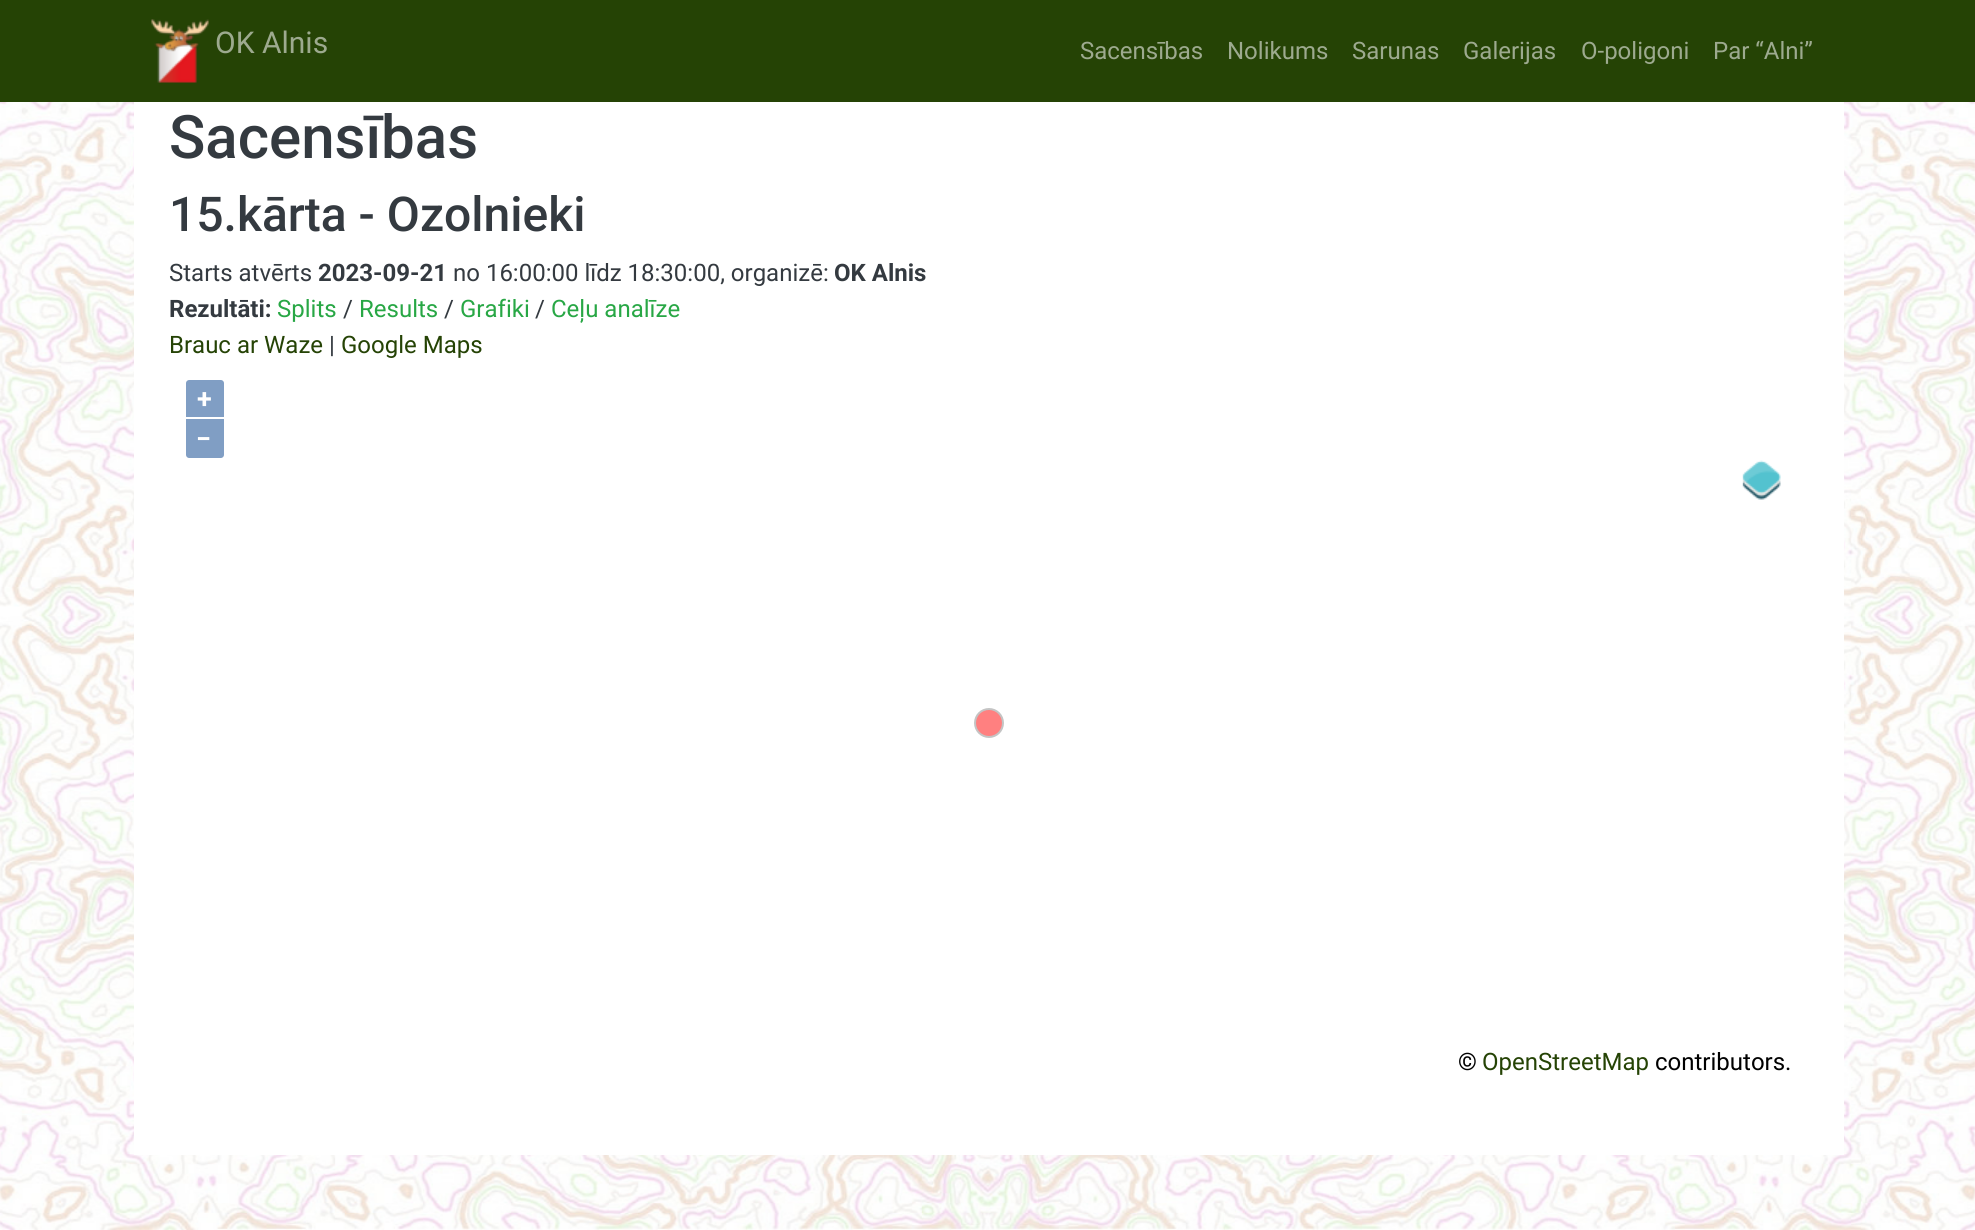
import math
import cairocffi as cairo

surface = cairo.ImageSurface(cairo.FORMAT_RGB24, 1975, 1230)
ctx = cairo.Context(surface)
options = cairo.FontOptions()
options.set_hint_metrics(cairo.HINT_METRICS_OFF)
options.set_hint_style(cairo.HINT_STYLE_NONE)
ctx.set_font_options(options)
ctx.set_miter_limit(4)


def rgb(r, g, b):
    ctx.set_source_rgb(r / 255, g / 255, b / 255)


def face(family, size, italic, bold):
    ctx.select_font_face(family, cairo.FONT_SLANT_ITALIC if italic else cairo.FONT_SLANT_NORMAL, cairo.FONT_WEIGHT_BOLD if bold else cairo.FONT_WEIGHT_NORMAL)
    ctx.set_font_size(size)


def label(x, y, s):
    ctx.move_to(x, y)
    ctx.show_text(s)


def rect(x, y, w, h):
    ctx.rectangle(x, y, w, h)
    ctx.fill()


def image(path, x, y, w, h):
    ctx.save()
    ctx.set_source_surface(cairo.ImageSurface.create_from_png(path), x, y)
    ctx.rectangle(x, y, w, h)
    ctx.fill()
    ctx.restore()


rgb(255, 255, 255)
ctx.paint()
image('image0.png', 0, 102, 1975, 1128)
rgb(37, 67, 5)
rect(0, 0, 1975, 102)
image('image1.png', 151, 19, 58, 64)
face('Roboto', 30, 0, 0)
rgb(157, 170, 143)
label(215, 53, 'OK Alnis')
face('Roboto', 24, 0, 0)
label(1080, 59, 'Sacensības')
label(1227, 59, 'Nolikums')
label(1352, 59, 'Sarunas')
label(1463, 59, 'Galerijas')
label(1581, 59, 'O-poligoni')
label(1713, 59, 'Par “Alni”')
rgb(255, 255, 255)
rect(134, 102, 1710, 1053)
face('Roboto Medium', 60, 0, 0)
rgb(52, 58, 64)
label(169, 158, 'Sacensības')
face('Roboto Medium', 48, 0, 0)
label(169, 231, '15.kārta - Ozolnieki')
face('Roboto', 24, 0, 0)
label(169, 281, 'Starts atvērts')
face('Roboto', 24, 0, 1)
label(318, 281, '2023-09-21')
face('Roboto', 24, 0, 0)
label(453, 281, 'no 16:00:00 līdz 18:30:00, organizē:')
face('Roboto', 24, 0, 1)
label(834, 281, 'OK Alnis')
label(169, 317, 'Rezultāti:')
face('Roboto', 24, 0, 0)
rgb(40, 167, 69)
label(277, 317, 'Splits')
rgb(52, 58, 64)
label(343, 317, '/')
rgb(40, 167, 69)
label(359, 317, 'Results')
rgb(52, 58, 64)
label(444, 317, '/')
rgb(40, 167, 69)
label(460, 317, 'Grafiki')
rgb(52, 58, 64)
label(535, 317, '/')
rgb(40, 167, 69)
label(551, 317, 'Ceļu analīze')
rgb(37, 67, 5)
label(169, 353, 'Brauc ar Waze')
rgb(52, 58, 64)
label(329, 353, '|')
rgb(37, 67, 5)
label(341, 353, 'Google Maps')
rgb(128, 158, 196)
ctx.new_path()
ctx.move_to(189, 380)
ctx.line_to(221, 380)
ctx.curve_to(222.5, 380, 224, 381.5, 224, 383)
ctx.line_to(224, 417)
ctx.line_to(186, 417)
ctx.line_to(186, 383)
ctx.curve_to(186, 381.5, 187.5, 380, 189, 380)
ctx.close_path()
ctx.fill()
face('Roboto', 27, 0, 1)
rgb(255, 255, 255)
label(197, 408, '+')
rgb(128, 158, 196)
ctx.new_path()
ctx.move_to(186, 419)
ctx.line_to(224, 419)
ctx.line_to(224, 455)
ctx.curve_to(224, 456.5, 222.5, 458, 221, 458)
ctx.line_to(189, 458)
ctx.curve_to(187.5, 458, 186, 456.5, 186, 455)
ctx.close_path()
ctx.fill()
rgb(255, 255, 255)
label(196, 448, '−')
image('image2.png', 1742, 460, 39, 40)
face('Roboto', 24, 0, 0)
rgb(0, 0, 0)
label(1458, 1070, '©')
rgb(37, 67, 5)
label(1482, 1070, 'OpenStreetMap')
rgb(0, 0, 0)
label(1655, 1070, 'contributors.')
rgb(255, 128, 128)
ctx.new_path()
ctx.arc(989, 723, 14, 0, 2 * math.pi)
ctx.fill_preserve()
rgb(196, 196, 196)
ctx.stroke()
surface.write_to_png('render.png')
